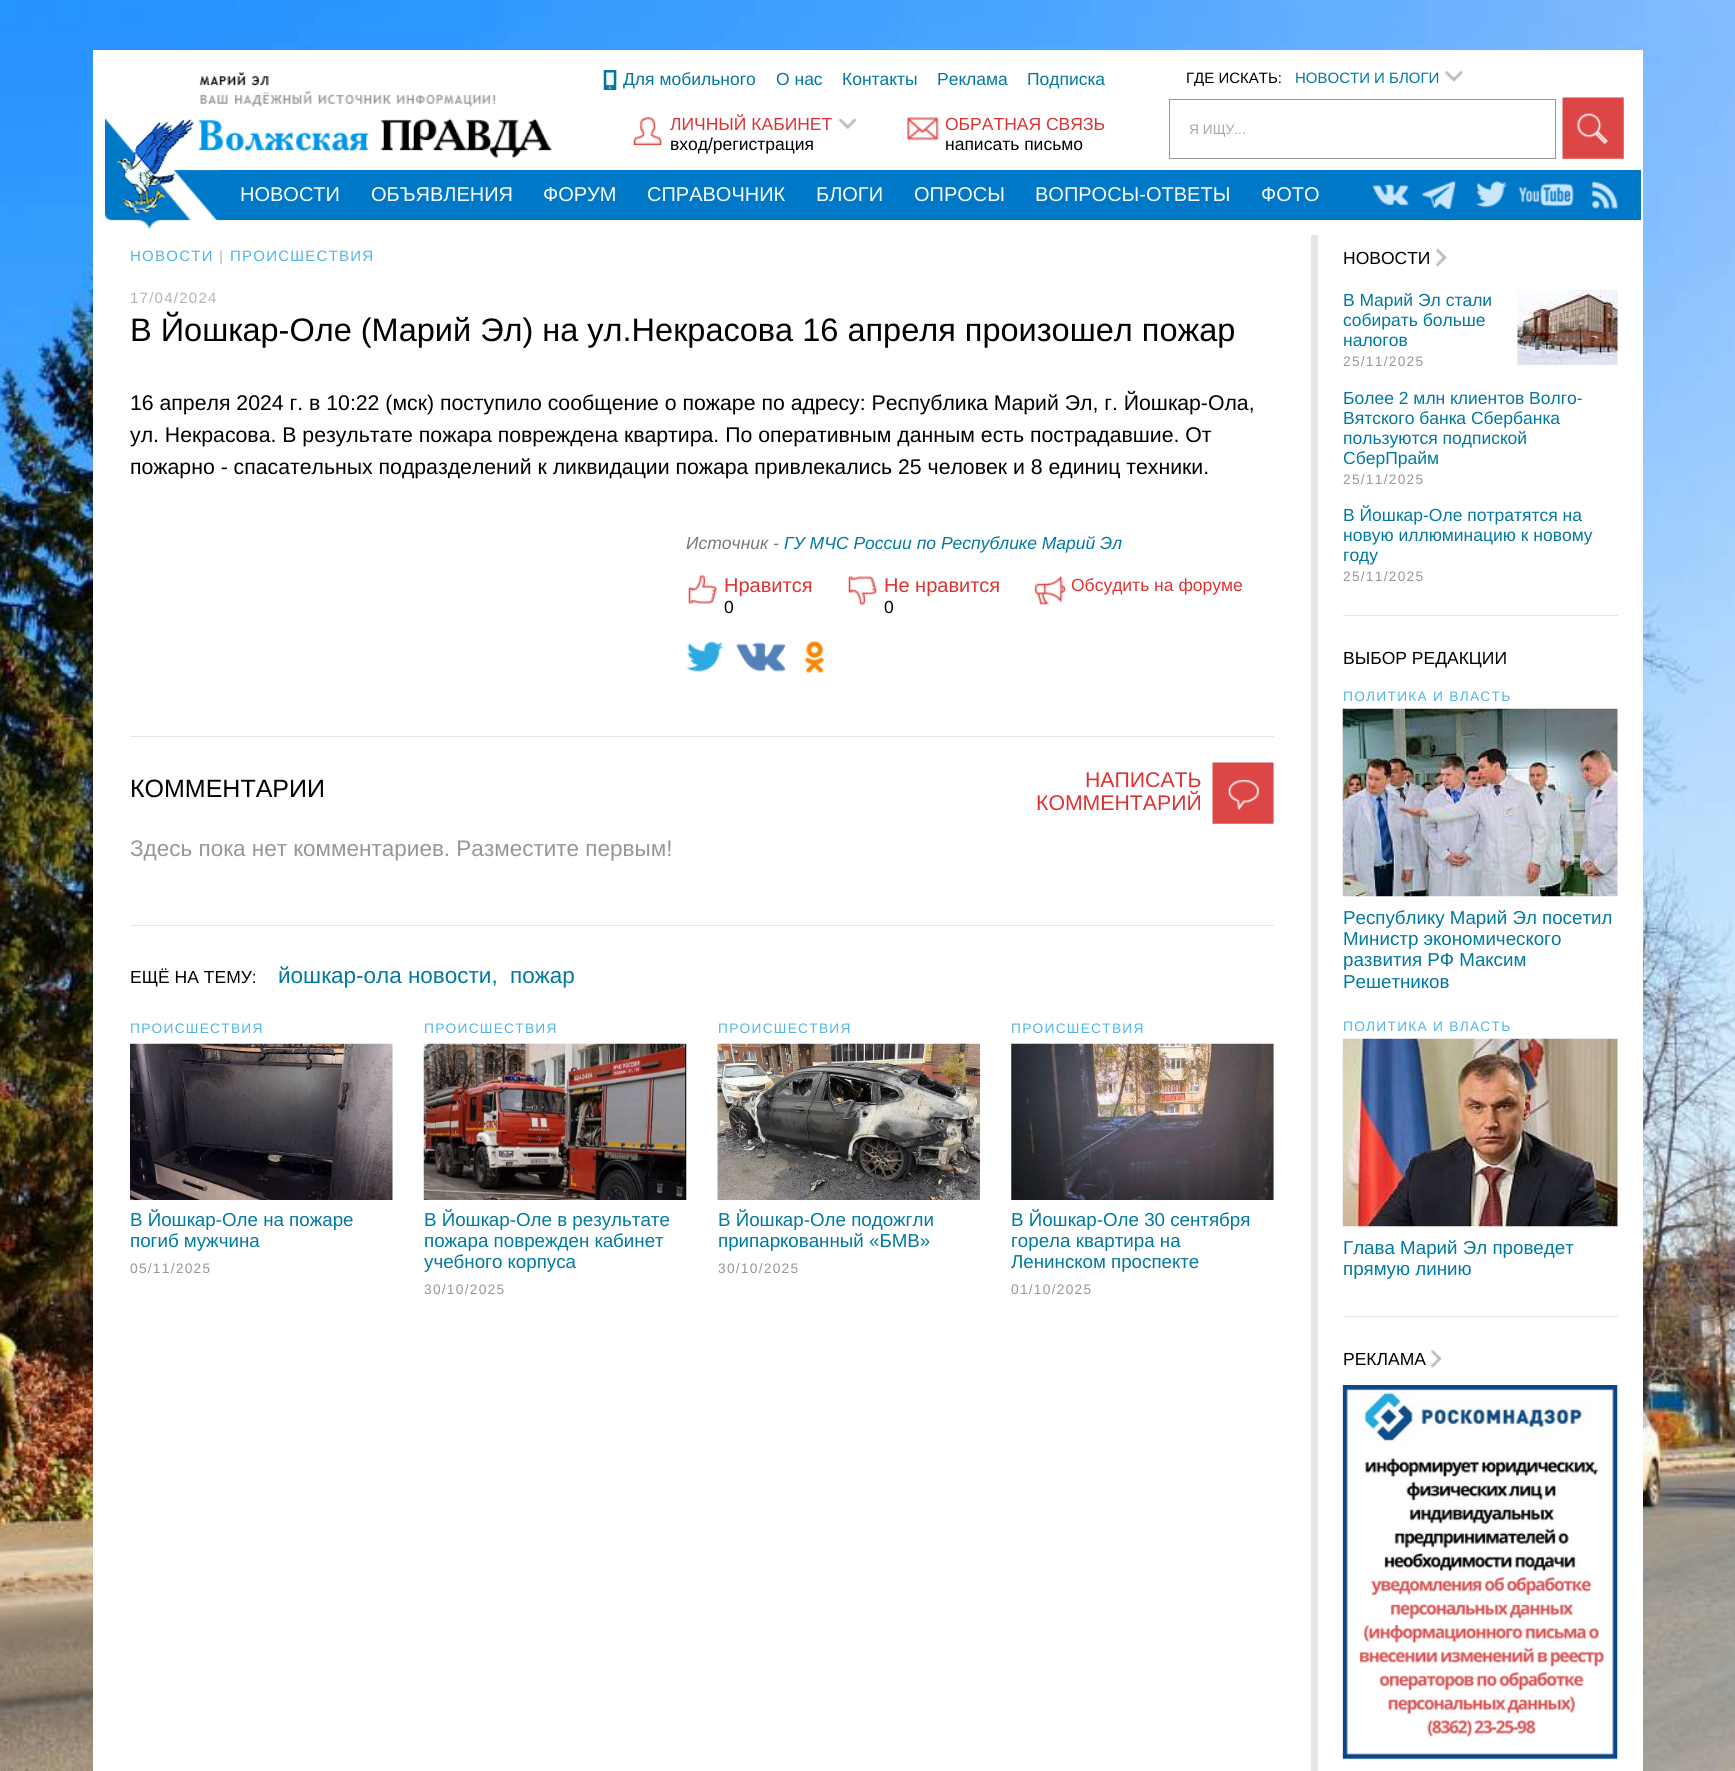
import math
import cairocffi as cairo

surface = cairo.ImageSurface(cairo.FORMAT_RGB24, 1735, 1771)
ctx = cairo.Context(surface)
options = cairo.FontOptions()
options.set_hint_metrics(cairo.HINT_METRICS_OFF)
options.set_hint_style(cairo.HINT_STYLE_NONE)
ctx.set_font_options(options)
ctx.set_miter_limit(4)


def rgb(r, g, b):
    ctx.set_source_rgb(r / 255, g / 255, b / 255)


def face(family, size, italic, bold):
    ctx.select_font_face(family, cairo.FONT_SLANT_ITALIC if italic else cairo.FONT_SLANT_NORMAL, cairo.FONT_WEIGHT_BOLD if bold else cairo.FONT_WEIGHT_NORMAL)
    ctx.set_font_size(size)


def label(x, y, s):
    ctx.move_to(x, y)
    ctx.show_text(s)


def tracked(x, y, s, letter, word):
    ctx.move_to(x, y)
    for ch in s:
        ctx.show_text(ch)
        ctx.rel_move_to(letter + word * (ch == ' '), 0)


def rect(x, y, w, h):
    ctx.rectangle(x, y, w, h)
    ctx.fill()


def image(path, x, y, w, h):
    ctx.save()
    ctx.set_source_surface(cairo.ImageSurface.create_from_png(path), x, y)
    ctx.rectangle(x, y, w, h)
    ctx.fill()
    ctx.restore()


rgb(255, 255, 255)
ctx.paint()
image('image0.png', 0, 0, 1735, 1771)
rgb(255, 255, 255)
rect(93, 50, 1550, 1721)
image('image1.png', 198, 72, 354, 86)
image('image2.png', 603, 70, 14, 20)
face('Liberation Sans', 17.5, 0, 0)
rgb(0, 120, 160)
label(623, 85, 'Для мобильного')
label(776, 85, 'О нас')
label(842, 85, 'Контакты')
label(937, 85, 'Реклама')
label(1027, 85, 'Подписка')
image('image3.png', 632, 116, 30, 30)
rgb(220, 50, 50)
label(670, 130, 'ЛИЧНЫЙ КАБИНЕТ')
image('image4.png', 837, 118, 20, 11)
rgb(0, 0, 0)
label(670, 150, 'вход/регистрация')
image('image5.png', 907, 117, 32, 24)
rgb(220, 50, 50)
label(945, 130, 'ОБРАТНАЯ СВЯЗЬ')
rgb(0, 0, 0)
label(945, 150, 'написать письмо')
face('Liberation Sans', 15, 0, 0)
label(1186, 83, 'ГДЕ ИСКАТЬ:')
rgb(0, 120, 160)
label(1295, 83, 'НОВОСТИ И БЛОГИ')
image('image6.png', 1444, 71, 19, 11)
ctx.rectangle(1169.5, 99.5, 386, 59)
rgb(150, 150, 150)
ctx.set_line_width(1)
ctx.stroke()
face('Liberation Sans', 13.75, 0, 0)
rgb(165, 165, 165)
label(1189, 134, 'Я ИЩУ...')
image('image7.png', 1562, 97, 62, 62)
image('image8.png', 105, 118, 118, 111)
rgb(0, 120, 200)
rect(220, 170, 1421, 50)
face('Liberation Sans', 20, 0, 0)
rgb(255, 255, 255)
label(240, 201, 'НОВОСТИ')
label(371, 201, 'ОБЪЯВЛЕНИЯ')
label(543, 201, 'ФОРУМ')
label(647, 201, 'СПРАВОЧНИК')
label(816, 201, 'БЛОГИ')
label(914, 201, 'ОПРОСЫ')
label(1035, 201, 'ВОПРОСЫ-ОТВЕТЫ')
label(1261, 201, 'ФОТО')
image('image9.png', 1372, 183, 37, 23)
image('image10.png', 1422, 181, 34, 28)
image('image11.png', 1476, 181, 31, 27)
image('image12.png', 1518, 183, 56, 24)
image('image13.png', 1591, 181, 27, 28)
face('Liberation Sans', 15, 0, 0)
rgb(80, 180, 230)
tracked(130, 261, 'НОВОСТИ', 1.25, 0)
rgb(180, 180, 180)
tracked(219, 261, '|', 1.25, 0)
rgb(80, 180, 230)
tracked(230, 261, 'ПРОИСШЕСТВИЯ', 1.25, 0)
rgb(180, 180, 180)
tracked(130, 303, '17/04/2024', 1.25, 0)
face('Liberation Sans', 32.5, 0, 0)
rgb(0, 0, 0)
label(130, 341, 'В Йошкар-Оле (Марий Эл) на ул.Некрасова 16 апреля произошел пожар')
face('Liberation Sans', 21.25, 0, 0)
label(130, 410, '16 апреля 2024 г. в 10:22 (мск) поступило сообщение о пожаре по адресу: Республика Марий Эл, г. Йошкар-Ола,')
label(130, 442, 'ул. Некрасова. В результате пожара повреждена квартира. По оперативным данным есть пострадавшие. От')
label(130, 474, 'пожарно - спасательных подразделений к ликвидации пожара привлекались 25 человек и 8 единиц техники.')
face('Liberation Sans', 17.5, 1, 0)
rgb(120, 120, 120)
label(686, 549, 'Источник -')
rgb(0, 120, 160)
label(784, 549, 'ГУ МЧС России по Республике Марий Эл')
image('image14.png', 688, 574, 30, 30)
face('Liberation Sans', 20, 0, 0)
rgb(220, 50, 50)
label(724, 592, 'Нравится')
face('Liberation Sans', 17.5, 0, 0)
rgb(0, 0, 0)
label(724, 613, '0')
image('image15.png', 848, 576, 30, 30)
face('Liberation Sans', 20, 0, 0)
rgb(220, 50, 50)
label(884, 592, 'Не нравится')
face('Liberation Sans', 17.5, 0, 0)
rgb(0, 0, 0)
label(884, 613, '0')
image('image16.png', 1034, 575, 33, 31)
rgb(220, 50, 50)
label(1071, 591, 'Обсудить на форуме')
image('image17.png', 686, 641, 38, 31)
image('image18.png', 736, 642, 50, 30)
image('image19.png', 804, 641, 20, 32)
rgb(230, 230, 230)
rect(130, 736, 1144, 1)
face('Liberation Sans', 25, 0, 0)
rgb(0, 0, 0)
label(130, 797, 'КОММЕНТАРИИ')
face('Liberation Sans', 21.25, 0, 0)
rgb(220, 50, 50)
label(1085, 787, 'НАПИСАТЬ')
label(1036, 810, 'КОММЕНТАРИЙ')
image('image20.png', 1212, 762, 62, 62)
face('Liberation Sans', 22.5, 0, 0)
rgb(150, 150, 150)
label(130, 856, 'Здесь пока нет комментариев. Разместите первым!')
rgb(230, 230, 230)
rect(130, 925, 1144, 1)
face('Liberation Sans', 17.5, 0, 0)
rgb(0, 0, 0)
label(130, 983, 'ЕЩЁ НА ТЕМУ:')
face('Liberation Sans', 22.5, 0, 0)
rgb(0, 120, 160)
label(278, 983, 'йошкар-ола новости,')
label(510, 983, 'пожар')
face('Liberation Sans', 13.75, 0, 0)
rgb(80, 180, 230)
tracked(130, 1033, 'ПРОИСШЕСТВИЯ', 1.25, 0)
image('image21.png', 130, 1043, 263, 157)
face('Liberation Sans', 18.75, 0, 0)
rgb(0, 120, 160)
label(130, 1226, 'В Йошкар-Оле на пожаре')
label(130, 1247, 'погиб мужчина')
face('Liberation Sans', 13.75, 0, 0)
rgb(150, 150, 150)
tracked(130, 1273, '05/11/2025', 1.25, 0)
rgb(80, 180, 230)
tracked(424, 1033, 'ПРОИСШЕСТВИЯ', 1.25, 0)
image('image22.png', 423, 1043, 264, 157)
face('Liberation Sans', 18.75, 0, 0)
rgb(0, 120, 160)
label(424, 1226, 'В Йошкар-Оле в результате')
label(424, 1247, 'пожара поврежден кабинет')
label(424, 1268, 'учебного корпуса')
face('Liberation Sans', 13.75, 0, 0)
rgb(150, 150, 150)
tracked(424, 1294, '30/10/2025', 1.25, 0)
rgb(80, 180, 230)
tracked(718, 1033, 'ПРОИСШЕСТВИЯ', 1.25, 0)
image('image23.png', 717, 1043, 263, 157)
face('Liberation Sans', 18.75, 0, 0)
rgb(0, 120, 160)
label(718, 1226, 'В Йошкар-Оле подожгли')
label(718, 1247, 'припаркованный «БМВ»')
face('Liberation Sans', 13.75, 0, 0)
rgb(150, 150, 150)
tracked(718, 1273, '30/10/2025', 1.25, 0)
rgb(80, 180, 230)
tracked(1011, 1033, 'ПРОИСШЕСТВИЯ', 1.25, 0)
image('image24.png', 1011, 1043, 263, 157)
face('Liberation Sans', 18.75, 0, 0)
rgb(0, 120, 160)
label(1011, 1226, 'В Йошкар-Оле 30 сентября')
label(1011, 1247, 'горела квартира на')
label(1011, 1268, 'Ленинском проспекте')
face('Liberation Sans', 13.75, 0, 0)
rgb(150, 150, 150)
tracked(1011, 1294, '01/10/2025', 1.25, 0)
rgb(230, 230, 230)
rect(1311, 235, 7, 1536)
face('Liberation Sans', 17.5, 0, 0)
rgb(0, 0, 0)
label(1343, 264, 'НОВОСТИ')
image('image25.png', 1436, 248, 11, 20)
rgb(0, 120, 160)
label(1343, 306, 'В Марий Эл стали')
image('image26.png', 1517, 290, 101, 75)
label(1343, 326, 'собирать больше')
label(1343, 346, 'налогов')
face('Liberation Sans', 13.75, 0, 0)
rgb(150, 150, 150)
tracked(1343, 366, '25/11/2025', 1.25, 0)
face('Liberation Sans', 17.5, 0, 0)
rgb(0, 120, 160)
label(1343, 404, 'Более 2 млн клиентов Волго-')
label(1343, 424, 'Вятского банка Сбербанка')
label(1343, 444, 'пользуются подпиской')
label(1343, 464, 'СберПрайм')
face('Liberation Sans', 13.75, 0, 0)
rgb(150, 150, 150)
tracked(1343, 484, '25/11/2025', 1.25, 0)
face('Liberation Sans', 17.5, 0, 0)
rgb(0, 120, 160)
label(1343, 521, 'В Йошкар-Оле потратятся на')
label(1343, 541, 'новую иллюминацию к новому')
label(1343, 561, 'году')
face('Liberation Sans', 13.75, 0, 0)
rgb(150, 150, 150)
tracked(1343, 581, '25/11/2025', 1.25, 0)
rgb(230, 230, 230)
rect(1343, 615, 275, 1)
face('Liberation Sans', 17.5, 0, 0)
rgb(0, 0, 0)
label(1343, 664, 'ВЫБОР РЕДАКЦИИ')
face('Liberation Sans', 13.75, 0, 0)
rgb(80, 180, 230)
tracked(1343, 701, 'ПОЛИТИКА И ВЛАСТЬ', 1.25, 0)
image('image27.png', 1342, 708, 276, 189)
face('Liberation Sans', 18.75, 0, 0)
rgb(0, 120, 160)
label(1343, 924, 'Республику Марий Эл посетил')
label(1343, 945, 'Министр экономического')
label(1343, 966, 'развития РФ Максим')
label(1343, 988, 'Решетников')
face('Liberation Sans', 13.75, 0, 0)
rgb(80, 180, 230)
tracked(1343, 1031, 'ПОЛИТИКА И ВЛАСТЬ', 1.25, 0)
image('image28.png', 1342, 1038, 276, 189)
face('Liberation Sans', 18.75, 0, 0)
rgb(0, 120, 160)
label(1343, 1254, 'Глава Марий Эл проведет')
label(1343, 1275, 'прямую линию')
rgb(230, 230, 230)
rect(1343, 1316, 275, 1)
face('Liberation Sans', 17.5, 0, 0)
rgb(0, 0, 0)
label(1343, 1365, 'РЕКЛАМА')
image('image29.png', 1431, 1350, 11, 19)
image('image30.png', 1342, 1385, 276, 375)
surface.write_to_png('render.png')
